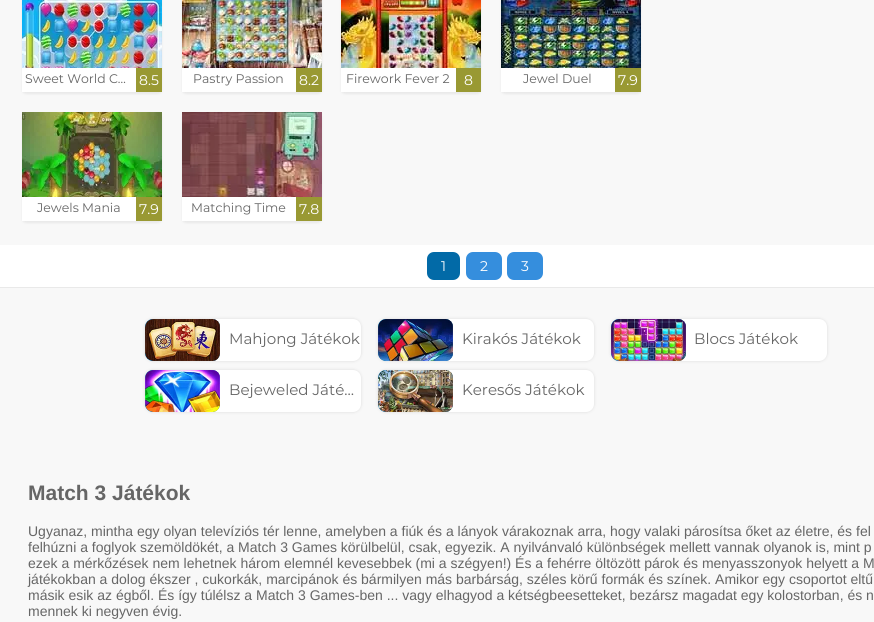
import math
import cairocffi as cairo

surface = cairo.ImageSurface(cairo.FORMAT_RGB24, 874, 622)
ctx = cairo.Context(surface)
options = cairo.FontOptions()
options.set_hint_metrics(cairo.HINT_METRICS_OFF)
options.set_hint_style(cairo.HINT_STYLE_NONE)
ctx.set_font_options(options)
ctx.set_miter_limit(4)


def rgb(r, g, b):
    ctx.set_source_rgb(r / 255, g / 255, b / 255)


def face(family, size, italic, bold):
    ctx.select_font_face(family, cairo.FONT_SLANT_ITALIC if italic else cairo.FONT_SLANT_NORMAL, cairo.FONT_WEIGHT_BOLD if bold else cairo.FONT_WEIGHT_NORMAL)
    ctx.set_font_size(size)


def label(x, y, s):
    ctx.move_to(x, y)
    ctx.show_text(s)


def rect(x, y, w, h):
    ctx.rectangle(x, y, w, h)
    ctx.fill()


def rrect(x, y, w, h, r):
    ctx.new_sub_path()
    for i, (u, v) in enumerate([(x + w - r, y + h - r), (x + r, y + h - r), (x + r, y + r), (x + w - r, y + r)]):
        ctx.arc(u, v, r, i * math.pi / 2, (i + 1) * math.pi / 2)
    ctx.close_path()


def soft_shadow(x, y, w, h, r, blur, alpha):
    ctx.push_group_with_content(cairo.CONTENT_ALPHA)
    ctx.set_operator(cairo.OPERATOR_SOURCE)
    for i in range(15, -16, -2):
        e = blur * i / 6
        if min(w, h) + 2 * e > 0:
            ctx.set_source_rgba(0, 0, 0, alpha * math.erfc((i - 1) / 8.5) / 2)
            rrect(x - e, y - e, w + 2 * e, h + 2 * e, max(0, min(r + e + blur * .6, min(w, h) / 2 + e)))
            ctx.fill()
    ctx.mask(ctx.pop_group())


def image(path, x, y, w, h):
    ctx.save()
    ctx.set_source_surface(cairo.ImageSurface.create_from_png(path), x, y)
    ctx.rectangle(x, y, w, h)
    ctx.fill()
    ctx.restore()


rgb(248, 248, 248)
ctx.paint()
rgb(233, 233, 233)
soft_shadow(22, -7, 140, 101, 4, 1, 1)
image('image0.png', 22, 0, 140, 68)
rgb(255, 255, 255)
rect(22, 68, 114, 24)
face('Montserrat', 12.5, 0, 0)
rgb(102, 102, 102)
label(25, 83, 'Sweet World C…')
rgb(153, 153, 51)
rect(136, 68, 26, 24)
face('Montserrat', 14, 0, 0)
rgb(255, 255, 255)
label(139, 85, '8.5')
rgb(233, 233, 233)
soft_shadow(182, -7, 140, 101, 4, 1, 1)
image('image1.png', 182, 0, 140, 68)
rgb(255, 255, 255)
rect(182, 68, 114, 24)
face('Montserrat', 12.5, 0, 0)
rgb(102, 102, 102)
label(193, 83, 'Pastry Passion')
rgb(153, 153, 51)
rect(296, 68, 26, 24)
face('Montserrat', 14, 0, 0)
rgb(255, 255, 255)
label(299, 85, '8.2')
rgb(233, 233, 233)
soft_shadow(341, -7, 140, 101, 4, 1, 1)
image('image2.png', 341, 0, 140, 68)
rgb(255, 255, 255)
rect(341, 68, 115, 24)
face('Montserrat', 12.5, 0, 0)
rgb(102, 102, 102)
label(346, 83, 'Firework Fever 2')
rgb(153, 153, 51)
rect(456, 68, 25, 24)
face('Montserrat', 14, 0, 0)
rgb(255, 255, 255)
label(464, 85, '8')
rgb(233, 233, 233)
soft_shadow(501, -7, 140, 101, 4, 1, 1)
image('image3.png', 501, 0, 140, 68)
rgb(255, 255, 255)
rect(501, 68, 114, 24)
face('Montserrat', 12.5, 0, 0)
rgb(102, 102, 102)
label(523, 83, 'Jewel Duel')
rgb(153, 153, 51)
rect(615, 68, 26, 24)
face('Montserrat', 14, 0, 0)
rgb(255, 255, 255)
label(618, 85, '7.9')
rgb(233, 233, 233)
soft_shadow(22, 114, 140, 109, 4, 1, 1)
image('image4.png', 22, 112, 140, 85)
rgb(255, 255, 255)
rect(22, 197, 114, 24)
face('Montserrat', 12.5, 0, 0)
rgb(102, 102, 102)
label(37, 212, 'Jewels Mania')
rgb(153, 153, 51)
rect(136, 197, 26, 24)
face('Montserrat', 14, 0, 0)
rgb(255, 255, 255)
label(139, 214, '7.9')
rgb(233, 233, 233)
soft_shadow(182, 114, 140, 109, 4, 1, 1)
image('image5.png', 182, 112, 140, 85)
rgb(255, 255, 255)
rect(182, 197, 114, 24)
face('Montserrat', 12.5, 0, 0)
rgb(102, 102, 102)
label(191, 212, 'Matching Time')
rgb(153, 153, 51)
rect(296, 197, 26, 24)
face('Montserrat', 14, 0, 0)
rgb(255, 255, 255)
label(299, 214, '7.8')
rect(0, 245, 874, 42)
rgb(233, 233, 233)
rect(0, 287, 874, 1)
rgb(2, 106, 167)
rrect(427, 252, 33, 28, 7)
ctx.fill()
rgb(255, 255, 255)
label(441, 271, '1')
rgb(53, 142, 221)
rrect(466, 252, 36, 28, 7)
ctx.fill()
rgb(255, 255, 255)
label(480, 271, '2')
rgb(53, 142, 221)
rrect(507, 252, 36, 28, 7)
ctx.fill()
rgb(255, 255, 255)
label(521, 271, '3')
rgb(217, 217, 217)
soft_shadow(145, 319, 216, 42, 8, 1.5, 1)
rgb(255, 255, 255)
rrect(145, 319, 216, 42, 8)
ctx.fill()
rgb(2, 106, 167)
rrect(145, 319, 75, 42, 8)
ctx.fill()
image('image6.png', 145, 319, 75, 42)
face('Montserrat', 15.1, 0, 0)
rgb(102, 102, 102)
label(229, 344, 'Mahjong Játékok')
rgb(217, 217, 217)
soft_shadow(145, 370, 216, 42, 8, 1.5, 1)
rgb(255, 255, 255)
rrect(145, 370, 216, 42, 8)
ctx.fill()
rgb(2, 106, 167)
rrect(145, 370, 75, 42, 8)
ctx.fill()
image('image7.png', 145, 370, 75, 42)
rgb(102, 102, 102)
label(229, 395, 'Bejeweled Játé…')
rgb(217, 217, 217)
soft_shadow(378, 319, 216, 42, 8, 1.5, 1)
rgb(255, 255, 255)
rrect(378, 319, 216, 42, 8)
ctx.fill()
rgb(2, 106, 167)
rrect(378, 319, 75, 42, 8)
ctx.fill()
image('image8.png', 378, 319, 75, 42)
rgb(102, 102, 102)
label(462, 344, 'Kirakós Játékok')
rgb(217, 217, 217)
soft_shadow(378, 370, 216, 42, 8, 1.5, 1)
rgb(255, 255, 255)
rrect(378, 370, 216, 42, 8)
ctx.fill()
rgb(2, 106, 167)
rrect(378, 370, 75, 42, 8)
ctx.fill()
image('image9.png', 378, 370, 75, 42)
rgb(102, 102, 102)
label(462, 395, 'Keresős Játékok')
rgb(217, 217, 217)
soft_shadow(611, 319, 216, 42, 8, 1.5, 1)
rgb(255, 255, 255)
rrect(611, 319, 216, 42, 8)
ctx.fill()
rgb(2, 106, 167)
rrect(611, 319, 75, 42, 8)
ctx.fill()
image('image10.png', 611, 319, 75, 42)
rgb(102, 102, 102)
label(694, 344, 'Blocs Játékok')
face('Liberation Sans', 21, 0, 1)
label(28, 500, 'Match 3 Játékok')
face('Liberation Sans', 14, 0, 0)
label(28, 536, 'Ugyanaz, mintha egy olyan televíziós tér lenne, amelyben a fiúk és a lányok várakoznak arra, hogy valaki párosítsa őket az életre, és fel')
label(28, 552, 'felhúzni a foglyok szemöldökét, a Match 3 Games körülbelül, csak, egyezik. A nyilvánvaló különbségek mellett vannak olyanok is, mint p')
label(28, 568, 'ezek a mérkőzések nem lehetnek három elemnél kevesebbek (mi a szégyen!) És a fehérre öltözött párok és menyasszonyok helyett a M')
label(28, 584, 'játékokban a dolog ékszer , cukorkák, marcipánok és bármilyen más barbárság, széles körű formák és színek. Amikor egy csoportot eltű')
label(28, 600, 'másik esik az égből. És így túlélsz a Match 3 Games-ben ... vagy elhagyod a kétségbeesetteket, bezársz magadat egy kolostorban, és n')
label(28, 616, 'mennek ki negyven évig.')
surface.write_to_png('render.png')
